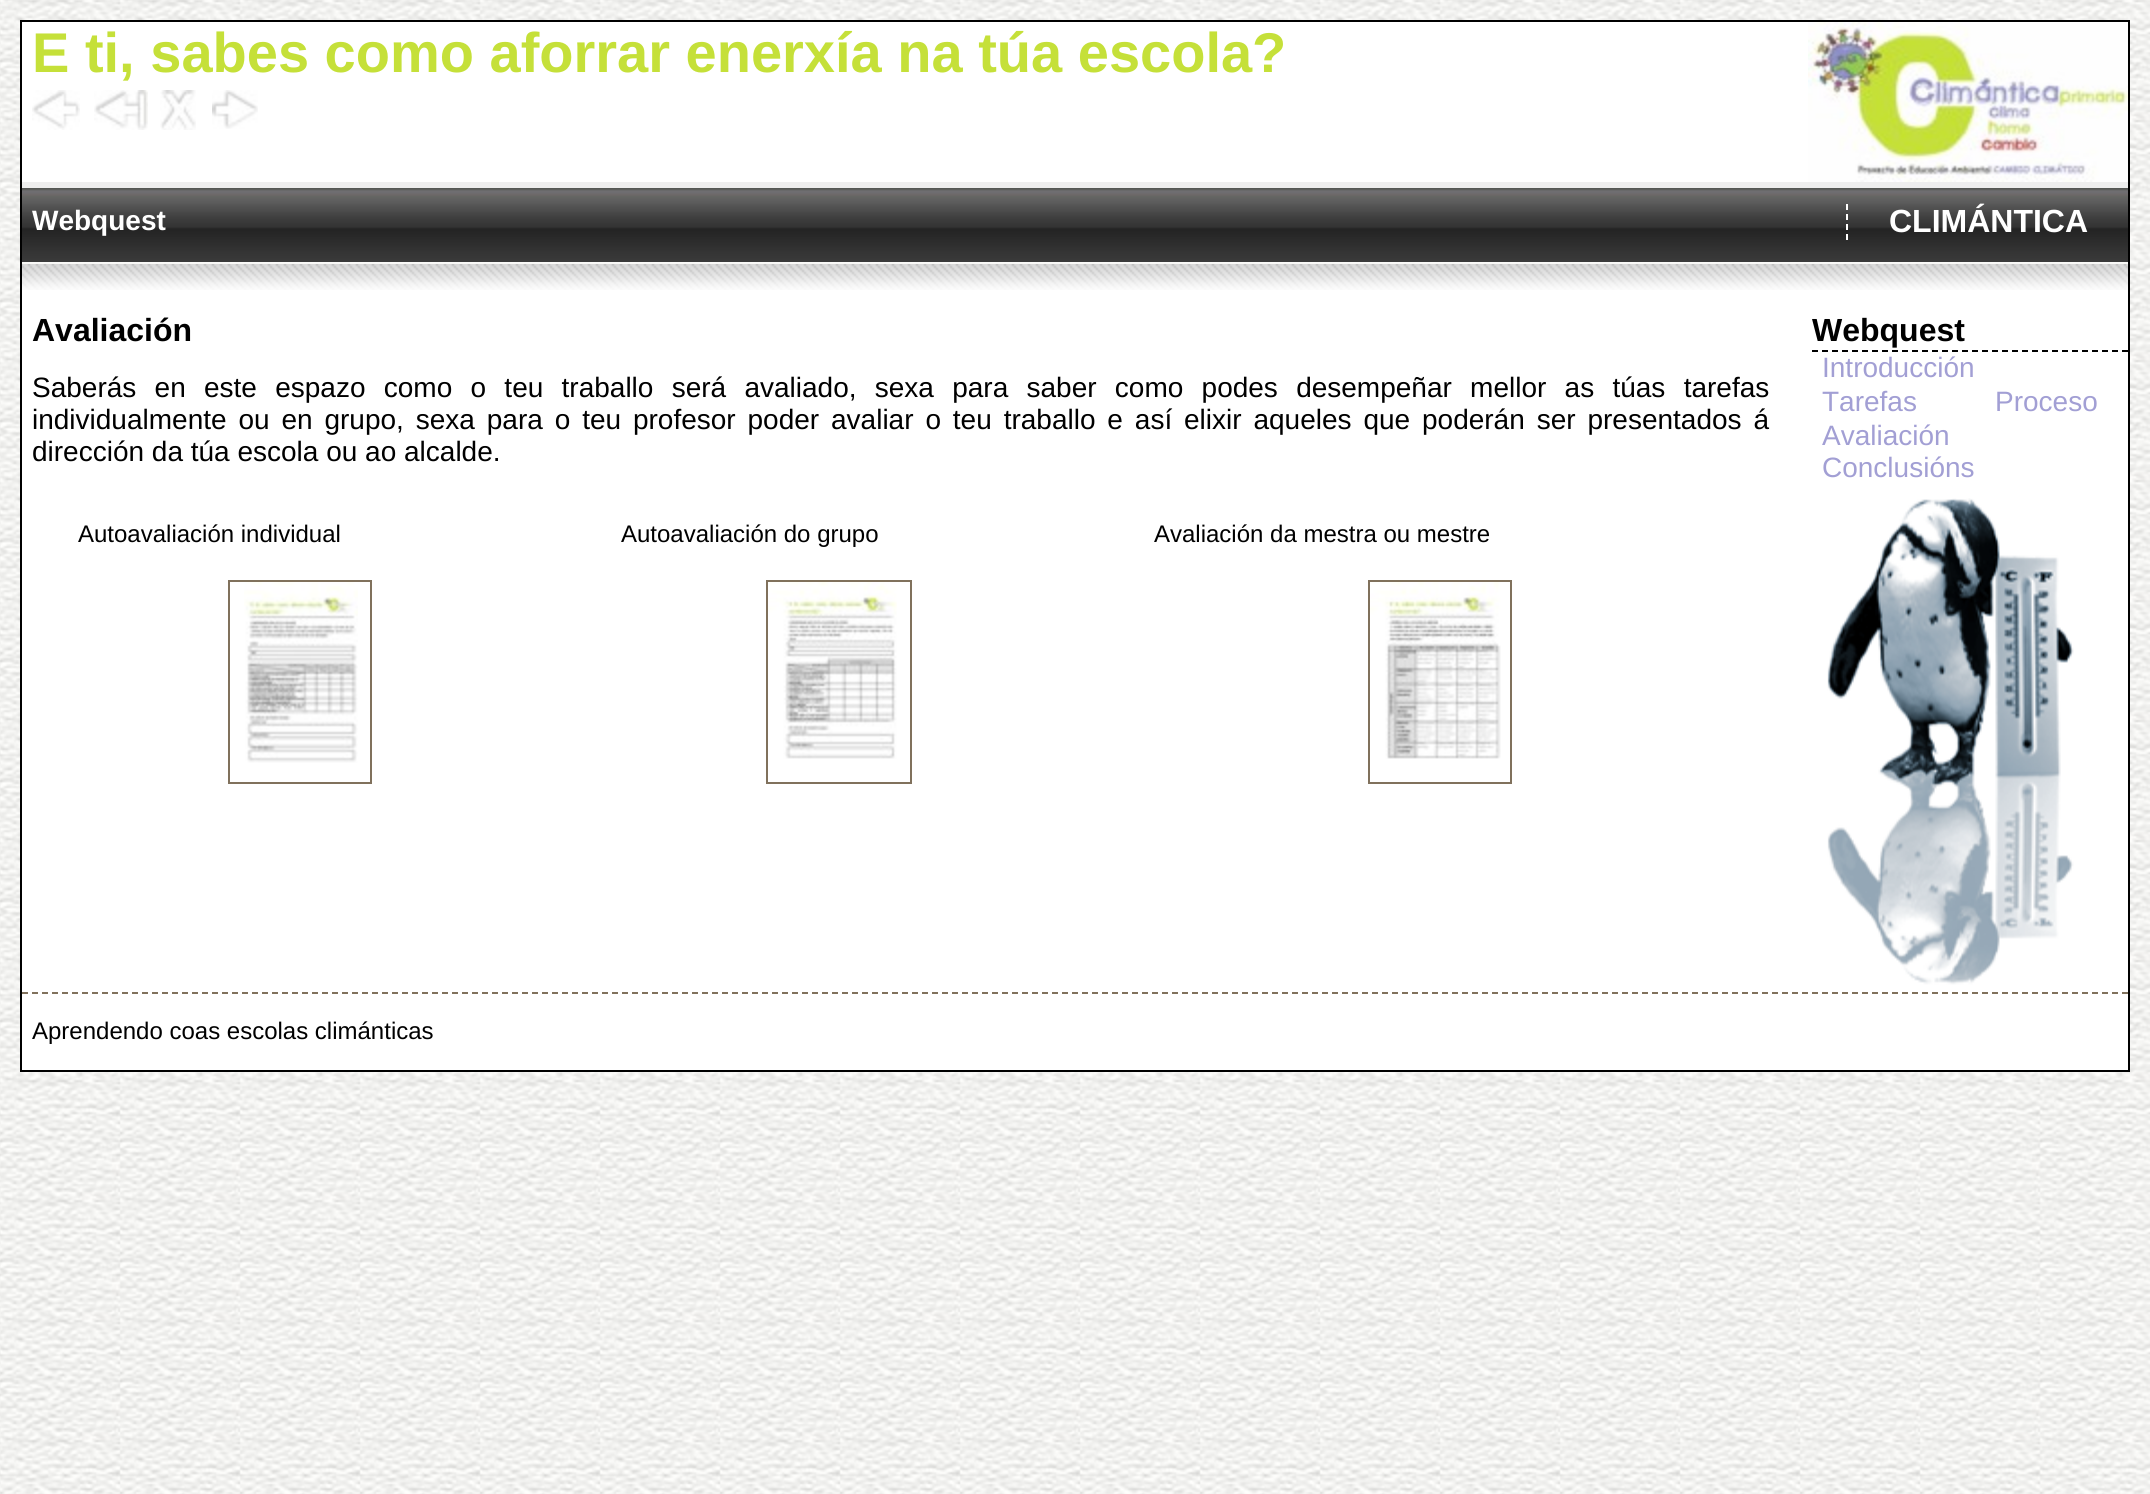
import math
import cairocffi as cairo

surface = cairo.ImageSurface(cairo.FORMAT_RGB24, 2150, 1494)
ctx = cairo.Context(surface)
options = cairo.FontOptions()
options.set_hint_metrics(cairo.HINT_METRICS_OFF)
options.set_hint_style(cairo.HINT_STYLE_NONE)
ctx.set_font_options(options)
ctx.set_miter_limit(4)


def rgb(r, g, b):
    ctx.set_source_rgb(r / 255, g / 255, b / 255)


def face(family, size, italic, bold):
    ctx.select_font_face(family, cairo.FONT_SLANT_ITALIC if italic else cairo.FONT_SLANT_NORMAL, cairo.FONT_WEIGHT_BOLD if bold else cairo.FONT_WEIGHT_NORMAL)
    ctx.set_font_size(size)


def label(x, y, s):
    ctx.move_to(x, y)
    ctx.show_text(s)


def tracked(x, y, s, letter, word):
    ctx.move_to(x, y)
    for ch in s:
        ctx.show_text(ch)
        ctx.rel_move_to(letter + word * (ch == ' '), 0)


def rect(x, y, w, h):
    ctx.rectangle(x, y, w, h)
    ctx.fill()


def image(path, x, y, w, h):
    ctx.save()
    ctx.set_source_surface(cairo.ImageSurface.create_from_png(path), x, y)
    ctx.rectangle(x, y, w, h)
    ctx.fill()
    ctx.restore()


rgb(255, 255, 255)
ctx.paint()
image('image0.png', 0, 0, 2150, 1494)
rgb(255, 255, 255)
ctx.rectangle(21, 21, 2108, 1050)
ctx.fill_preserve()
rgb(0, 0, 0)
ctx.stroke()
image('image1.png', 1808, 22, 320, 160)
rgb(238, 238, 238)
rect(22, 182, 2106, 6)
face('Liberation Sans', 56, 0, 1)
rgb(197, 224, 57)
label(32, 72, 'E ti, sabes como aforrar enerxía na túa escola?')
image('image2.png', 32, 90, 48, 40)
image('image3.png', 94, 90, 54, 40)
image('image4.png', 160, 90, 36, 40)
image('image5.png', 212, 90, 46, 39)
rgb(249, 249, 247)
rect(22, 262, 2106, 2)
image('image6.png', 22, 188, 2106, 74)
face('Liberation Sans', 28, 0, 1)
rgb(255, 255, 255)
label(32, 230, 'Webquest')
ctx.new_path()
ctx.move_to(1847, 204)
ctx.line_to(1847, 240)
ctx.set_dash([6, 4])
ctx.stroke()
face('Liberation Sans', 32, 0, 1)
label(1889, 232, 'CLIMÁNTICA')
image('image7.png', 22, 264, 2106, 26)
rgb(0, 0, 0)
label(32, 341, 'Avaliación')
face('Liberation Sans', 28, 0, 0)
tracked(32, 397, 'Saberás en este espazo como o teu traballo será avaliado, sexa para saber como podes desempeñar mellor as túas tarefas', 0, 10.5)
tracked(32, 429, 'individualmente ou en grupo, sexa para o teu profesor poder avaliar o teu traballo e así elixir aqueles que poderán ser presentados á', 0, 4.1)
label(32, 461, 'dirección da túa escola ou ao alcalde.')
face('Liberation Sans', 24, 0, 0)
label(78, 542, 'Autoavaliación individual')
label(621, 542, 'Autoavaliación do grupo')
label(1154, 542, 'Avaliación da mestra ou mestre')
ctx.rectangle(229, 581, 142, 202)
rgb(128, 113, 92)
ctx.set_dash([])
ctx.stroke()
image('image8.png', 244, 582, 114, 181)
ctx.rectangle(767, 581, 144, 202)
ctx.stroke()
image('image9.png', 768, 582, 129, 177)
ctx.rectangle(1369, 581, 142, 202)
ctx.stroke()
image('image10.png', 1370, 582, 131, 177)
ctx.new_path()
ctx.move_to(1812, 351)
ctx.line_to(2128, 351)
rgb(0, 0, 0)
ctx.set_dash([6, 4])
ctx.stroke()
face('Liberation Sans', 32, 0, 1)
label(1812, 341, 'Webquest')
face('Liberation Sans', 28, 0, 0)
rgb(162, 159, 212)
label(1822, 377, 'Introducción')
label(1822, 411, 'Tarefas')
label(1995, 411, 'Proceso')
label(1822, 445, 'Avaliación')
label(1822, 477, 'Conclusións')
image('image11.png', 1827, 498, 247, 487)
ctx.new_path()
ctx.move_to(22, 993)
ctx.line_to(2128, 993)
rgb(128, 113, 92)
ctx.stroke()
face('Liberation Sans', 24, 0, 0)
rgb(0, 0, 0)
label(32, 1039, 'Aprendendo coas escolas climánticas')
surface.write_to_png('render.png')
